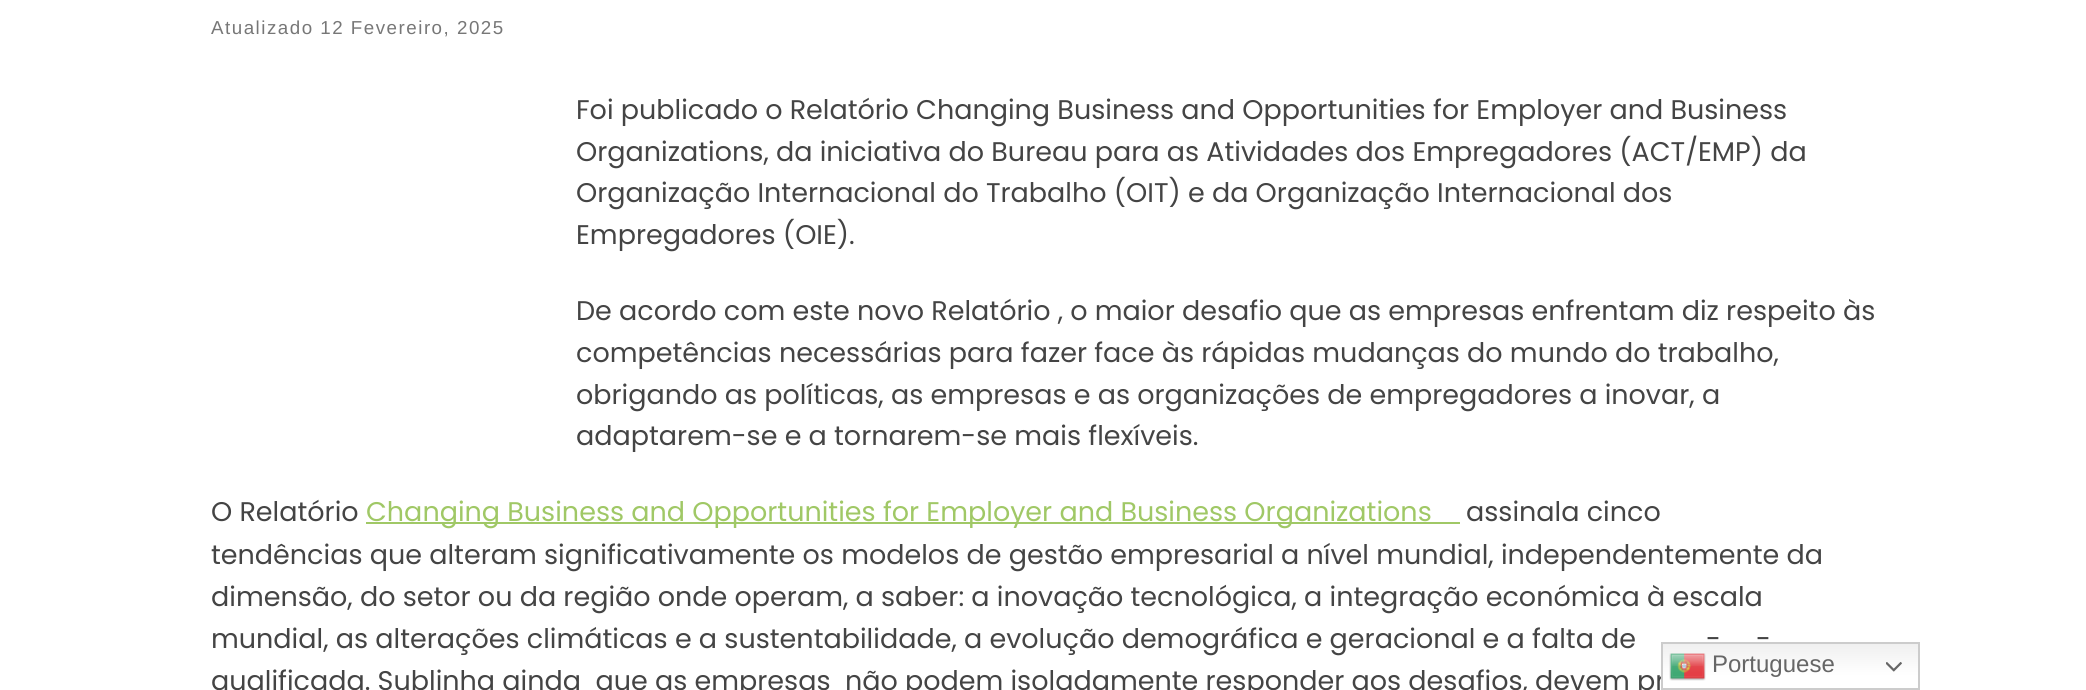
import math
import cairocffi as cairo

surface = cairo.ImageSurface(cairo.FORMAT_RGB24, 2086, 690)
ctx = cairo.Context(surface)
options = cairo.FontOptions()
options.set_hint_metrics(cairo.HINT_METRICS_OFF)
options.set_hint_style(cairo.HINT_STYLE_NONE)
ctx.set_font_options(options)
ctx.set_miter_limit(4)


def rgb(r, g, b):
    ctx.set_source_rgb(r / 255, g / 255, b / 255)


def face(family, size, italic, bold):
    ctx.select_font_face(family, cairo.FONT_SLANT_ITALIC if italic else cairo.FONT_SLANT_NORMAL, cairo.FONT_WEIGHT_BOLD if bold else cairo.FONT_WEIGHT_NORMAL)
    ctx.set_font_size(size)


def label(x, y, s):
    ctx.move_to(x, y)
    ctx.show_text(s)


def tracked(x, y, s, letter, word):
    ctx.move_to(x, y)
    for ch in s:
        ctx.show_text(ch)
        ctx.rel_move_to(letter + word * (ch == ' '), 0)


def rect(x, y, w, h):
    ctx.rectangle(x, y, w, h)
    ctx.fill()


def image(path, x, y, w, h):
    ctx.save()
    ctx.set_source_surface(cairo.ImageSurface.create_from_png(path), x, y)
    ctx.rectangle(x, y, w, h)
    ctx.fill()
    ctx.restore()


rgb(255, 255, 255)
ctx.paint()
face('Liberation Sans', 18.75, 0, 0)
rgb(119, 119, 119)
tracked(211, 34, 'Atualizado 12 Fevereiro, 2025', 1.5, 0)
face('Poppins', 27, 0, 0)
rgb(68, 68, 68)
label(576, 119, 'Foi publicado o Relatório Changing Business and Opportunities for Employer and Business')
label(576, 161, 'Organizations, da iniciativa do Bureau para as Atividades dos Empregadores (ACT/EMP) da')
label(576, 202, 'Organização Internacional do Trabalho (OIT) e da Organização Internacional dos')
label(576, 244, 'Empregadores (OIE).')
label(576, 320, 'De acordo com este novo Relatório , o maior desafio que as empresas enfrentam diz respeito às')
label(576, 362, 'competências necessárias para fazer face às rápidas mudanças do mundo do trabalho,')
label(576, 404, 'obrigando as políticas, as empresas e as organizações de empregadores a inovar, a')
label(576, 445, 'adaptarem-se e a tornarem-se mais flexíveis.')
label(211, 521, 'O Relatório')
rgb(160, 200, 102)
rect(366, 522, 1094, 2)
label(366, 521, 'Changing Business and Opportunities for Employer and Business Organizations')
rgb(68, 68, 68)
label(1466, 521, 'assinala cinco')
label(211, 564, 'tendências que alteram significativamente os modelos de gestão empresarial a nível mundial, independentemente da')
label(211, 606, 'dimensão, do setor ou da região onde operam, a saber: a inovação tecnológica, a integração económica à escala')
label(211, 648, 'mundial, as alterações climáticas e a sustentabilidade, a evolução demográfica e geracional e a falta de')
label(1706, 648, '-')
label(1756, 648, '-')
label(211, 690, 'qualificada. Sublinha ainda  que as empresas  não podem isoladamente responder aos desafios, devem pr')
gradient = cairo.LinearGradient(1790, 642, 1790, 690)
gradient.add_color_stop_rgba(0, 0.937, 0.937, 0.937, 1)
gradient.add_color_stop_rgba(0.7, 1, 1, 1, 1)
ctx.set_source(gradient)
rect(1663, 644, 255, 34)
ctx.rectangle(1662, 643, 257, 46)
rgb(204, 204, 204)
ctx.stroke()
image('image0.png', 1669, 653, 37, 28)
face('Liberation Sans', 24, 0, 0)
rgb(102, 102, 102)
label(1712, 672, 'Portuguese')
image('image1.png', 1886, 662, 16, 10)
surface.write_to_png('render.png')
